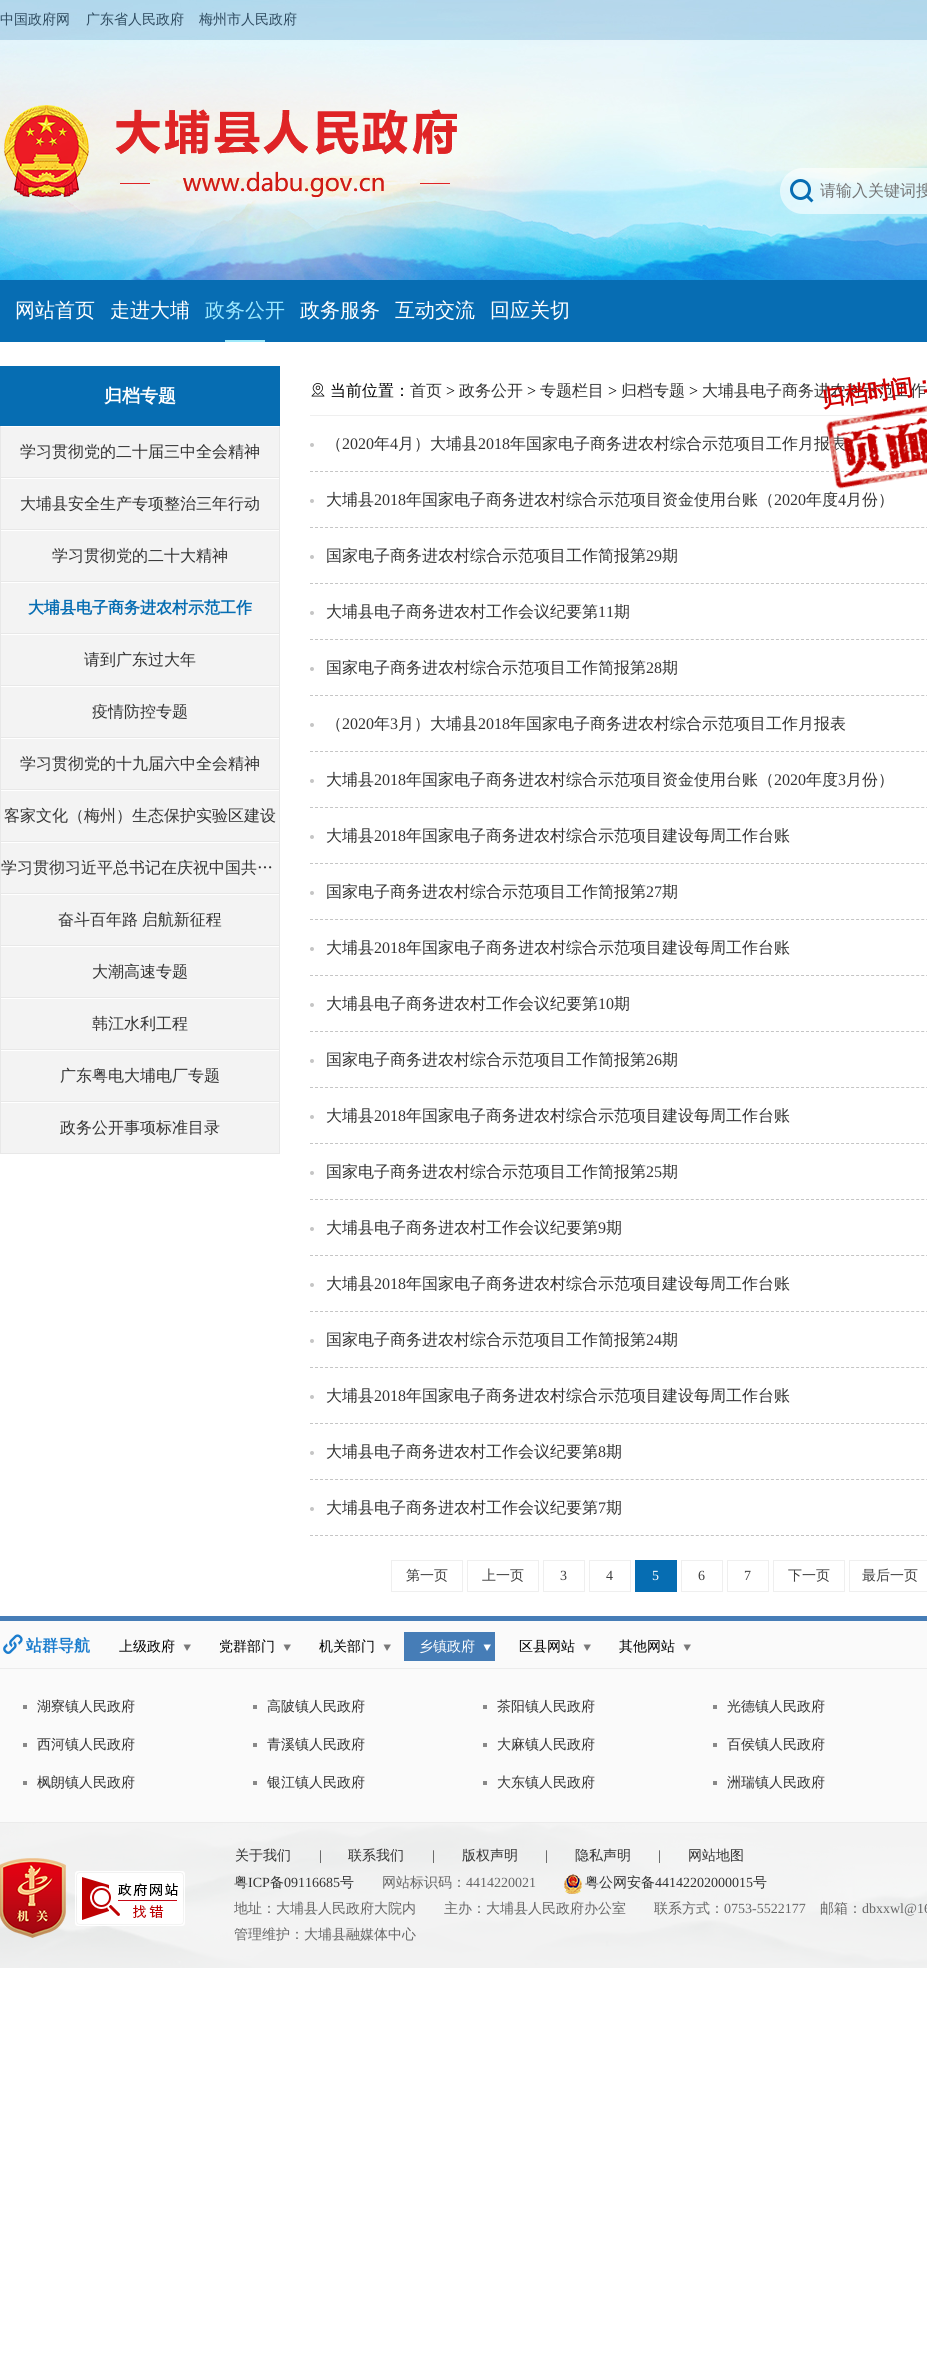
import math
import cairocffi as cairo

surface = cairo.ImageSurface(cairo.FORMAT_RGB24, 927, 2359)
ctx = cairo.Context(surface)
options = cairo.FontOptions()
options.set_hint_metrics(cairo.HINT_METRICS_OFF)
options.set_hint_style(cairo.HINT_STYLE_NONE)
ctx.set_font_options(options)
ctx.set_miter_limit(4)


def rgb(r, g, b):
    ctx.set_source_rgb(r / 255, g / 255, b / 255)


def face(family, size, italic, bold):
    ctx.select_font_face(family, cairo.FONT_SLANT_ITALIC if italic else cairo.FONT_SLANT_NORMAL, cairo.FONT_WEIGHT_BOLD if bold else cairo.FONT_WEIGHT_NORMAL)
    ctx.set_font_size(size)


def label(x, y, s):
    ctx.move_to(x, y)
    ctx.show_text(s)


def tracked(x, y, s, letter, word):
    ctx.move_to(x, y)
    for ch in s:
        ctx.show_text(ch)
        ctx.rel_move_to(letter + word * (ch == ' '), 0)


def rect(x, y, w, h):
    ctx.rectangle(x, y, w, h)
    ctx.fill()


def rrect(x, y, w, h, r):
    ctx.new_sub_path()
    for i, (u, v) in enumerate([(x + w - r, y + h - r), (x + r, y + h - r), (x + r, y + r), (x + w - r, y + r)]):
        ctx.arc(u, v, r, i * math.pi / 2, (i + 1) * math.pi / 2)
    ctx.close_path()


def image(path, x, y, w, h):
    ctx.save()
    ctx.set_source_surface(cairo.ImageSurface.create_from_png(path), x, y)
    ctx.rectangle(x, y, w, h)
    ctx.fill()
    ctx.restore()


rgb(255, 255, 255)
ctx.paint()
image('image0.png', 0, 0, 927, 280)
ctx.set_source_rgba(0.027, 0.427, 0.702, 0.2)
rect(0, 0, 927, 40)
face('WenQuanYi Zen Hei Medium', 14, 0, 0)
rgb(46, 75, 96)
label(0, 24, '中国政府网')
label(86, 24, '广东省人民政府')
label(199, 24, '梅州市人民政府')
image('image1.png', 4, 105, 453, 93)
ctx.set_source_rgba(1, 1, 1, 0.6)
rrect(780, 168, 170, 46, 23)
ctx.fill()
image('image2.png', 790, 179, 24, 24)
face('WenQuanYi Zen Hei Medium', 16, 0, 0)
rgb(117, 117, 117)
label(820, 196, '请输入关键词搜')
rgb(7, 109, 179)
rect(0, 280, 927, 62)
face('WenQuanYi Zen Hei Medium', 20, 0, 0)
rgb(255, 255, 255)
label(15, 317, '网站首页')
label(110, 317, '走进大埔')
rgb(158, 233, 255)
label(205, 317, '政务公开')
rgb(158, 233, 250)
rect(225, 340, 40, 2)
rgb(255, 255, 255)
label(300, 317, '政务服务')
label(395, 317, '互动交流')
label(490, 317, '回应关切')
rgb(6, 109, 178)
rect(0, 366, 280, 60)
face('WenQuanYi Zen Hei', 18, 0, 1)
rgb(255, 255, 255)
label(104, 402, '归档专题')
rgb(232, 232, 232)
rect(279, 426, 1, 728)
rect(0, 426, 1, 728)
rgb(243, 243, 243)
rect(1, 427, 278, 50)
rgb(232, 232, 232)
rect(1, 477, 278, 1)
face('WenQuanYi Zen Hei Medium', 16, 0, 0)
rgb(51, 51, 51)
label(20, 457, '学习贯彻党的二十届三中全会精神')
rgb(243, 243, 243)
rect(1, 479, 278, 50)
rgb(232, 232, 232)
rect(1, 529, 278, 1)
rgb(51, 51, 51)
label(20, 509, '大埔县安全生产专项整治三年行动')
rgb(243, 243, 243)
rect(1, 531, 278, 50)
rgb(232, 232, 232)
rect(1, 581, 278, 1)
rgb(51, 51, 51)
label(52, 561, '学习贯彻党的二十大精神')
rgb(243, 243, 243)
rect(1, 583, 278, 50)
rgb(232, 232, 232)
rect(1, 633, 278, 1)
face('WenQuanYi Zen Hei', 16, 0, 1)
rgb(6, 109, 178)
label(28, 613, '大埔县电子商务进农村示范工作')
rgb(243, 243, 243)
rect(1, 635, 278, 50)
rgb(232, 232, 232)
rect(1, 685, 278, 1)
face('WenQuanYi Zen Hei Medium', 16, 0, 0)
rgb(51, 51, 51)
label(84, 665, '请到广东过大年')
rgb(243, 243, 243)
rect(1, 687, 278, 50)
rgb(232, 232, 232)
rect(1, 737, 278, 1)
rgb(51, 51, 51)
label(92, 717, '疫情防控专题')
rgb(243, 243, 243)
rect(1, 739, 278, 50)
rgb(232, 232, 232)
rect(1, 789, 278, 1)
rgb(51, 51, 51)
label(20, 769, '学习贯彻党的十九届六中全会精神')
rgb(243, 243, 243)
rect(1, 791, 278, 50)
rgb(232, 232, 232)
rect(1, 841, 278, 1)
rgb(51, 51, 51)
label(4, 821, '客家文化（梅州）生态保护实验区建设')
rgb(243, 243, 243)
rect(1, 843, 278, 50)
rgb(232, 232, 232)
rect(1, 893, 278, 1)
rgb(51, 51, 51)
label(1, 873, '学习贯彻习近平总书记在庆祝中国共…')
rgb(243, 243, 243)
rect(1, 895, 278, 50)
rgb(232, 232, 232)
rect(1, 945, 278, 1)
rgb(51, 51, 51)
tracked(58, 925, '奋斗百年路 启航新征程', 0, -1)
rgb(243, 243, 243)
rect(1, 947, 278, 50)
rgb(232, 232, 232)
rect(1, 997, 278, 1)
rgb(51, 51, 51)
label(92, 977, '大潮高速专题')
rgb(243, 243, 243)
rect(1, 999, 278, 50)
rgb(232, 232, 232)
rect(1, 1049, 278, 1)
rgb(51, 51, 51)
label(92, 1029, '韩江水利工程')
rgb(243, 243, 243)
rect(1, 1051, 278, 50)
rgb(232, 232, 232)
rect(1, 1101, 278, 1)
rgb(51, 51, 51)
label(60, 1081, '广东粤电大埔电厂专题')
rgb(243, 243, 243)
rect(1, 1103, 278, 50)
rgb(232, 232, 232)
rect(1, 1153, 278, 1)
rgb(51, 51, 51)
label(60, 1133, '政务公开事项标准目录')
label(702, 396, '大埔县电子商务进农村示范工作')
face('WenQuanYi Zen Hei', 23, 0, 1)
rgb(210, 0, 0)
ctx.save()
ctx.translate(823, 407)
ctx.rotate(-8 * math.pi / 180)
label(0, 0, '归档时间：')
ctx.restore()
ctx.new_path()
ctx.move_to(310, 471.5)
ctx.line_to(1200, 471.5)
rgb(197, 197, 197)
ctx.set_line_width(1)
ctx.set_dash([3, 2.01])
ctx.stroke()
face('WenQuanYi Zen Hei Medium', 16, 0, 0)
rgb(51, 51, 51)
label(510, 449, '年国家电子商务进农村综合示范项目工作月报表')
rgb(239, 239, 239)
rect(310, 415, 617, 1)
image('image3.png', 826, 405, 101, 84)
rgb(197, 197, 197)
ctx.arc(312, 445, 2, 0, 2 * math.pi)
ctx.fill()
rgb(51, 51, 51)
label(326, 449, '（')
face('Liberation Serif', 16, 0, 0)
label(342, 449, '2020')
face('WenQuanYi Zen Hei Medium', 16, 0, 0)
label(374, 449, '年')
face('Liberation Serif', 16, 0, 0)
label(390, 449, '4')
face('WenQuanYi Zen Hei Medium', 16, 0, 0)
label(398, 449, '月）大埔县')
face('Liberation Serif', 16, 0, 0)
label(478, 449, '2018')
ctx.new_path()
ctx.move_to(310, 527.5)
ctx.line_to(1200, 527.5)
rgb(197, 197, 197)
ctx.stroke()
ctx.arc(312, 501, 2, 0, 2 * math.pi)
ctx.fill()
face('WenQuanYi Zen Hei Medium', 16, 0, 0)
rgb(51, 51, 51)
label(326, 505, '大埔县')
face('Liberation Serif', 16, 0, 0)
label(374, 505, '2018')
face('WenQuanYi Zen Hei Medium', 16, 0, 0)
label(406, 505, '年国家电子商务进农村综合示范项目资金使用台账（')
face('Liberation Serif', 16, 0, 0)
label(774, 505, '2020')
face('WenQuanYi Zen Hei Medium', 16, 0, 0)
label(806, 505, '年度')
face('Liberation Serif', 16, 0, 0)
label(838, 505, '4')
face('WenQuanYi Zen Hei Medium', 16, 0, 0)
label(846, 505, '月份）')
ctx.new_path()
ctx.move_to(310, 583.5)
ctx.line_to(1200, 583.5)
rgb(197, 197, 197)
ctx.stroke()
ctx.arc(312, 557, 2, 0, 2 * math.pi)
ctx.fill()
rgb(51, 51, 51)
label(326, 561, '国家电子商务进农村综合示范项目工作简报第')
face('Liberation Serif', 16, 0, 0)
label(646, 561, '29')
face('WenQuanYi Zen Hei Medium', 16, 0, 0)
label(662, 561, '期')
ctx.new_path()
ctx.move_to(310, 639.5)
ctx.line_to(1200, 639.5)
rgb(197, 197, 197)
ctx.stroke()
ctx.arc(312, 613, 2, 0, 2 * math.pi)
ctx.fill()
rgb(51, 51, 51)
label(326, 617, '大埔县电子商务进农村工作会议纪要第')
face('Liberation Serif', 16, 0, 0)
label(598, 617, '11')
face('WenQuanYi Zen Hei Medium', 16, 0, 0)
label(614, 617, '期')
ctx.new_path()
ctx.move_to(310, 695.5)
ctx.line_to(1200, 695.5)
rgb(197, 197, 197)
ctx.stroke()
ctx.arc(312, 669, 2, 0, 2 * math.pi)
ctx.fill()
rgb(51, 51, 51)
label(326, 673, '国家电子商务进农村综合示范项目工作简报第')
face('Liberation Serif', 16, 0, 0)
label(646, 673, '28')
face('WenQuanYi Zen Hei Medium', 16, 0, 0)
label(662, 673, '期')
ctx.new_path()
ctx.move_to(310, 751.5)
ctx.line_to(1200, 751.5)
rgb(197, 197, 197)
ctx.stroke()
ctx.arc(312, 725, 2, 0, 2 * math.pi)
ctx.fill()
rgb(51, 51, 51)
label(326, 729, '（')
face('Liberation Serif', 16, 0, 0)
label(342, 729, '2020')
face('WenQuanYi Zen Hei Medium', 16, 0, 0)
label(374, 729, '年')
face('Liberation Serif', 16, 0, 0)
label(390, 729, '3')
face('WenQuanYi Zen Hei Medium', 16, 0, 0)
label(398, 729, '月）大埔县')
face('Liberation Serif', 16, 0, 0)
label(478, 729, '2018')
face('WenQuanYi Zen Hei Medium', 16, 0, 0)
label(510, 729, '年国家电子商务进农村综合示范项目工作月报表')
ctx.new_path()
ctx.move_to(310, 807.5)
ctx.line_to(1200, 807.5)
rgb(197, 197, 197)
ctx.stroke()
ctx.arc(312, 781, 2, 0, 2 * math.pi)
ctx.fill()
rgb(51, 51, 51)
label(326, 785, '大埔县')
face('Liberation Serif', 16, 0, 0)
label(374, 785, '2018')
face('WenQuanYi Zen Hei Medium', 16, 0, 0)
label(406, 785, '年国家电子商务进农村综合示范项目资金使用台账（')
face('Liberation Serif', 16, 0, 0)
label(774, 785, '2020')
face('WenQuanYi Zen Hei Medium', 16, 0, 0)
label(806, 785, '年度')
face('Liberation Serif', 16, 0, 0)
label(838, 785, '3')
face('WenQuanYi Zen Hei Medium', 16, 0, 0)
label(846, 785, '月份）')
ctx.new_path()
ctx.move_to(310, 863.5)
ctx.line_to(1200, 863.5)
rgb(197, 197, 197)
ctx.stroke()
ctx.arc(312, 837, 2, 0, 2 * math.pi)
ctx.fill()
rgb(51, 51, 51)
label(326, 841, '大埔县')
face('Liberation Serif', 16, 0, 0)
label(374, 841, '2018')
face('WenQuanYi Zen Hei Medium', 16, 0, 0)
label(406, 841, '年国家电子商务进农村综合示范项目建设每周工作台账')
ctx.new_path()
ctx.move_to(310, 919.5)
ctx.line_to(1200, 919.5)
rgb(197, 197, 197)
ctx.stroke()
ctx.arc(312, 893, 2, 0, 2 * math.pi)
ctx.fill()
rgb(51, 51, 51)
label(326, 897, '国家电子商务进农村综合示范项目工作简报第')
face('Liberation Serif', 16, 0, 0)
label(646, 897, '27')
face('WenQuanYi Zen Hei Medium', 16, 0, 0)
label(662, 897, '期')
ctx.new_path()
ctx.move_to(310, 975.5)
ctx.line_to(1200, 975.5)
rgb(197, 197, 197)
ctx.stroke()
ctx.arc(312, 949, 2, 0, 2 * math.pi)
ctx.fill()
rgb(51, 51, 51)
label(326, 953, '大埔县')
face('Liberation Serif', 16, 0, 0)
label(374, 953, '2018')
face('WenQuanYi Zen Hei Medium', 16, 0, 0)
label(406, 953, '年国家电子商务进农村综合示范项目建设每周工作台账')
ctx.new_path()
ctx.move_to(310, 1031.5)
ctx.line_to(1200, 1031.5)
rgb(197, 197, 197)
ctx.stroke()
ctx.arc(312, 1005, 2, 0, 2 * math.pi)
ctx.fill()
rgb(51, 51, 51)
label(326, 1009, '大埔县电子商务进农村工作会议纪要第')
face('Liberation Serif', 16, 0, 0)
label(598, 1009, '10')
face('WenQuanYi Zen Hei Medium', 16, 0, 0)
label(614, 1009, '期')
ctx.new_path()
ctx.move_to(310, 1087.5)
ctx.line_to(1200, 1087.5)
rgb(197, 197, 197)
ctx.stroke()
ctx.arc(312, 1061, 2, 0, 2 * math.pi)
ctx.fill()
rgb(51, 51, 51)
label(326, 1065, '国家电子商务进农村综合示范项目工作简报第')
face('Liberation Serif', 16, 0, 0)
label(646, 1065, '26')
face('WenQuanYi Zen Hei Medium', 16, 0, 0)
label(662, 1065, '期')
ctx.new_path()
ctx.move_to(310, 1143.5)
ctx.line_to(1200, 1143.5)
rgb(197, 197, 197)
ctx.stroke()
ctx.arc(312, 1117, 2, 0, 2 * math.pi)
ctx.fill()
rgb(51, 51, 51)
label(326, 1121, '大埔县')
face('Liberation Serif', 16, 0, 0)
label(374, 1121, '2018')
face('WenQuanYi Zen Hei Medium', 16, 0, 0)
label(406, 1121, '年国家电子商务进农村综合示范项目建设每周工作台账')
ctx.new_path()
ctx.move_to(310, 1199.5)
ctx.line_to(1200, 1199.5)
rgb(197, 197, 197)
ctx.stroke()
ctx.arc(312, 1173, 2, 0, 2 * math.pi)
ctx.fill()
rgb(51, 51, 51)
label(326, 1177, '国家电子商务进农村综合示范项目工作简报第')
face('Liberation Serif', 16, 0, 0)
label(646, 1177, '25')
face('WenQuanYi Zen Hei Medium', 16, 0, 0)
label(662, 1177, '期')
ctx.new_path()
ctx.move_to(310, 1255.5)
ctx.line_to(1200, 1255.5)
rgb(197, 197, 197)
ctx.stroke()
ctx.arc(312, 1229, 2, 0, 2 * math.pi)
ctx.fill()
rgb(51, 51, 51)
label(326, 1233, '大埔县电子商务进农村工作会议纪要第')
face('Liberation Serif', 16, 0, 0)
label(598, 1233, '9')
face('WenQuanYi Zen Hei Medium', 16, 0, 0)
label(606, 1233, '期')
ctx.new_path()
ctx.move_to(310, 1311.5)
ctx.line_to(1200, 1311.5)
rgb(197, 197, 197)
ctx.stroke()
ctx.arc(312, 1285, 2, 0, 2 * math.pi)
ctx.fill()
rgb(51, 51, 51)
label(326, 1289, '大埔县')
face('Liberation Serif', 16, 0, 0)
label(374, 1289, '2018')
face('WenQuanYi Zen Hei Medium', 16, 0, 0)
label(406, 1289, '年国家电子商务进农村综合示范项目建设每周工作台账')
ctx.new_path()
ctx.move_to(310, 1367.5)
ctx.line_to(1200, 1367.5)
rgb(197, 197, 197)
ctx.stroke()
ctx.arc(312, 1341, 2, 0, 2 * math.pi)
ctx.fill()
rgb(51, 51, 51)
label(326, 1345, '国家电子商务进农村综合示范项目工作简报第')
face('Liberation Serif', 16, 0, 0)
label(646, 1345, '24')
face('WenQuanYi Zen Hei Medium', 16, 0, 0)
label(662, 1345, '期')
ctx.new_path()
ctx.move_to(310, 1423.5)
ctx.line_to(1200, 1423.5)
rgb(197, 197, 197)
ctx.stroke()
ctx.arc(312, 1397, 2, 0, 2 * math.pi)
ctx.fill()
rgb(51, 51, 51)
label(326, 1401, '大埔县')
face('Liberation Serif', 16, 0, 0)
label(374, 1401, '2018')
face('WenQuanYi Zen Hei Medium', 16, 0, 0)
label(406, 1401, '年国家电子商务进农村综合示范项目建设每周工作台账')
ctx.new_path()
ctx.move_to(310, 1479.5)
ctx.line_to(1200, 1479.5)
rgb(197, 197, 197)
ctx.stroke()
ctx.arc(312, 1453, 2, 0, 2 * math.pi)
ctx.fill()
rgb(51, 51, 51)
label(326, 1457, '大埔县电子商务进农村工作会议纪要第')
face('Liberation Serif', 16, 0, 0)
label(598, 1457, '8')
face('WenQuanYi Zen Hei Medium', 16, 0, 0)
label(606, 1457, '期')
ctx.new_path()
ctx.move_to(310, 1535.5)
ctx.line_to(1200, 1535.5)
rgb(197, 197, 197)
ctx.stroke()
ctx.arc(312, 1509, 2, 0, 2 * math.pi)
ctx.fill()
rgb(51, 51, 51)
label(326, 1513, '大埔县电子商务进农村工作会议纪要第')
face('Liberation Serif', 16, 0, 0)
label(598, 1513, '7')
face('WenQuanYi Zen Hei Medium', 16, 0, 0)
label(606, 1513, '期')
ctx.rectangle(391.5, 1560.5, 71, 31)
rgb(239, 239, 239)
ctx.set_dash([])
ctx.stroke()
face('WenQuanYi Zen Hei Medium', 14, 0, 0)
rgb(62, 62, 62)
label(406, 1580, '第一页')
ctx.rectangle(467.5, 1560.5, 71, 31)
rgb(239, 239, 239)
ctx.stroke()
rgb(62, 62, 62)
label(482, 1580, '上一页')
ctx.rectangle(543.5, 1560.5, 41, 31)
rgb(239, 239, 239)
ctx.stroke()
face('Liberation Serif', 14, 0, 0)
rgb(62, 62, 62)
label(560, 1580, '3')
ctx.rectangle(589.5, 1560.5, 41, 31)
rgb(239, 239, 239)
ctx.stroke()
rgb(62, 62, 62)
label(606, 1580, '4')
rgb(6, 109, 178)
rect(635, 1560, 42, 32)
rgb(255, 255, 255)
label(652, 1580, '5')
ctx.rectangle(681.5, 1560.5, 41, 31)
rgb(239, 239, 239)
ctx.stroke()
rgb(62, 62, 62)
label(698, 1580, '6')
ctx.rectangle(727.5, 1560.5, 41, 31)
rgb(239, 239, 239)
ctx.stroke()
rgb(62, 62, 62)
label(744, 1580, '7')
ctx.rectangle(773.5, 1560.5, 71, 31)
rgb(239, 239, 239)
ctx.stroke()
face('WenQuanYi Zen Hei Medium', 14, 0, 0)
rgb(62, 62, 62)
label(788, 1580, '下一页')
ctx.rectangle(849.5, 1560.5, 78, 31)
rgb(239, 239, 239)
ctx.stroke()
rgb(62, 62, 62)
label(862, 1580, '最后一页')
image('image4.png', 311, 383, 14, 14)
face('WenQuanYi Zen Hei Medium', 16, 0, 0)
rgb(0, 0, 0)
label(330, 396, '当前位置：')
rgb(51, 51, 51)
label(410, 396, '首页')
face('Liberation Serif', 16, 0, 0)
rgb(0, 0, 0)
label(446, 396, '>')
face('WenQuanYi Zen Hei Medium', 16, 0, 0)
rgb(51, 51, 51)
label(459, 396, '政务公开')
face('Liberation Serif', 16, 0, 0)
rgb(0, 0, 0)
label(527, 396, '>')
face('WenQuanYi Zen Hei Medium', 16, 0, 0)
rgb(51, 51, 51)
label(540, 396, '专题栏目')
face('Liberation Serif', 16, 0, 0)
rgb(0, 0, 0)
label(608, 396, '>')
face('WenQuanYi Zen Hei Medium', 16, 0, 0)
rgb(51, 51, 51)
label(621, 396, '归档专题')
face('Liberation Serif', 16, 0, 0)
rgb(0, 0, 0)
label(689, 396, '>')
rgb(250, 250, 250)
rect(0, 1621, 927, 201)
rgb(70, 125, 183)
rect(0, 1616, 927, 5)
image('image5.png', 3, 1634, 20, 20)
face('WenQuanYi Zen Hei', 16, 0, 1)
rgb(28, 125, 206)
label(26, 1651, '站群导航')
face('WenQuanYi Zen Hei Medium', 14, 0, 0)
rgb(0, 0, 0)
label(119, 1651, '上级政府')
rgb(120, 120, 120)
ctx.new_path()
ctx.move_to(187, 1651)
ctx.line_to(183.5, 1644.5)
ctx.line_to(191, 1644.5)
ctx.close_path()
ctx.fill()
rgb(0, 0, 0)
label(219, 1651, '党群部门')
rgb(120, 120, 120)
ctx.new_path()
ctx.move_to(287, 1651)
ctx.line_to(283.5, 1644.5)
ctx.line_to(291, 1644.5)
ctx.close_path()
ctx.fill()
rgb(0, 0, 0)
label(319, 1651, '机关部门')
rgb(120, 120, 120)
ctx.new_path()
ctx.move_to(387, 1651)
ctx.line_to(383.5, 1644.5)
ctx.line_to(391, 1644.5)
ctx.close_path()
ctx.fill()
rgb(70, 125, 183)
rect(404, 1632, 91, 29)
rgb(255, 255, 255)
label(419, 1651, '乡镇政府')
ctx.new_path()
ctx.move_to(487, 1651)
ctx.line_to(483.5, 1644.5)
ctx.line_to(491, 1644.5)
ctx.close_path()
ctx.fill()
rgb(0, 0, 0)
label(519, 1651, '区县网站')
rgb(120, 120, 120)
ctx.new_path()
ctx.move_to(587, 1651)
ctx.line_to(583.5, 1644.5)
ctx.line_to(591, 1644.5)
ctx.close_path()
ctx.fill()
rgb(0, 0, 0)
label(619, 1651, '其他网站')
rgb(120, 120, 120)
ctx.new_path()
ctx.move_to(687, 1651)
ctx.line_to(683.5, 1644.5)
ctx.line_to(691, 1644.5)
ctx.close_path()
ctx.fill()
rgb(136, 136, 136)
rect(23, 1705, 4, 4)
rgb(51, 51, 51)
label(37, 1711, '湖寮镇人民政府')
rgb(136, 136, 136)
rect(253, 1705, 4, 4)
rgb(51, 51, 51)
label(267, 1711, '高陂镇人民政府')
rgb(136, 136, 136)
rect(483, 1705, 4, 4)
rgb(51, 51, 51)
label(497, 1711, '茶阳镇人民政府')
rgb(136, 136, 136)
rect(713, 1705, 4, 4)
rgb(51, 51, 51)
label(727, 1711, '光德镇人民政府')
rgb(136, 136, 136)
rect(23, 1743, 4, 4)
rgb(51, 51, 51)
label(37, 1749, '西河镇人民政府')
rgb(136, 136, 136)
rect(253, 1743, 4, 4)
rgb(51, 51, 51)
label(267, 1749, '青溪镇人民政府')
rgb(136, 136, 136)
rect(483, 1743, 4, 4)
rgb(51, 51, 51)
label(497, 1749, '大麻镇人民政府')
rgb(136, 136, 136)
rect(713, 1743, 4, 4)
rgb(51, 51, 51)
label(727, 1749, '百侯镇人民政府')
rgb(136, 136, 136)
rect(23, 1781, 4, 4)
rgb(51, 51, 51)
label(37, 1787, '枫朗镇人民政府')
rgb(136, 136, 136)
rect(253, 1781, 4, 4)
rgb(51, 51, 51)
label(267, 1787, '银江镇人民政府')
rgb(136, 136, 136)
rect(483, 1781, 4, 4)
rgb(51, 51, 51)
label(497, 1787, '大东镇人民政府')
rgb(136, 136, 136)
rect(713, 1781, 4, 4)
rgb(51, 51, 51)
label(727, 1787, '洲瑞镇人民政府')
rgb(236, 236, 236)
rect(0, 1668, 927, 1)
image('image6.png', 0, 1823, 927, 145)
rgb(235, 235, 235)
rect(0, 1822, 927, 1)
rgb(51, 51, 51)
label(235, 1860, '关于我们')
face('Liberation Serif', 14, 0, 0)
label(319, 1860, '|')
face('WenQuanYi Zen Hei Medium', 14, 0, 0)
label(348, 1860, '联系我们')
face('Liberation Serif', 14, 0, 0)
label(432, 1860, '|')
face('WenQuanYi Zen Hei Medium', 14, 0, 0)
label(462, 1860, '版权声明')
face('Liberation Serif', 14, 0, 0)
label(545, 1860, '|')
face('WenQuanYi Zen Hei Medium', 14, 0, 0)
label(575, 1860, '隐私声明')
face('Liberation Serif', 14, 0, 0)
label(658, 1860, '|')
face('WenQuanYi Zen Hei Medium', 14, 0, 0)
label(688, 1860, '网站地图')
image('image7.png', 75, 1871, 110, 55)
image('image8.png', 0, 1858, 66, 80)
label(234, 1887, '粤')
face('Liberation Serif', 14, 0, 0)
label(248, 1887, 'ICP')
face('WenQuanYi Zen Hei Medium', 14, 0, 0)
label(270, 1887, '备')
face('Liberation Serif', 14, 0, 0)
label(284, 1887, '09116685')
face('WenQuanYi Zen Hei Medium', 14, 0, 0)
label(340, 1887, '号')
rgb(102, 102, 102)
label(382, 1887, '网站标识码：')
face('Liberation Serif', 14, 0, 0)
label(466, 1887, '4414220021')
image('image9.png', 564, 1874, 18, 20)
face('WenQuanYi Zen Hei Medium', 14, 0, 0)
rgb(51, 51, 51)
label(585, 1887, '粤公网安备')
face('Liberation Serif', 14, 0, 0)
label(655, 1887, '44142202000015')
face('WenQuanYi Zen Hei Medium', 14, 0, 0)
label(753, 1887, '号')
rgb(102, 102, 102)
label(234, 1913, '地址：大埔县人民政府大院内')
label(444, 1913, '主办：大埔县人民政府办公室')
label(654, 1913, '联系方式：')
face('Liberation Serif', 14, 0, 0)
label(724, 1913, '0753-5522177')
face('WenQuanYi Zen Hei Medium', 14, 0, 0)
label(820, 1913, '邮箱：')
face('Liberation Serif', 14, 0, 0)
label(862, 1913, 'dbxxwl@16')
face('WenQuanYi Zen Hei Medium', 14, 0, 0)
label(234, 1939, '管理维护：大埔县融媒体中心')
surface.write_to_png('render.png')
